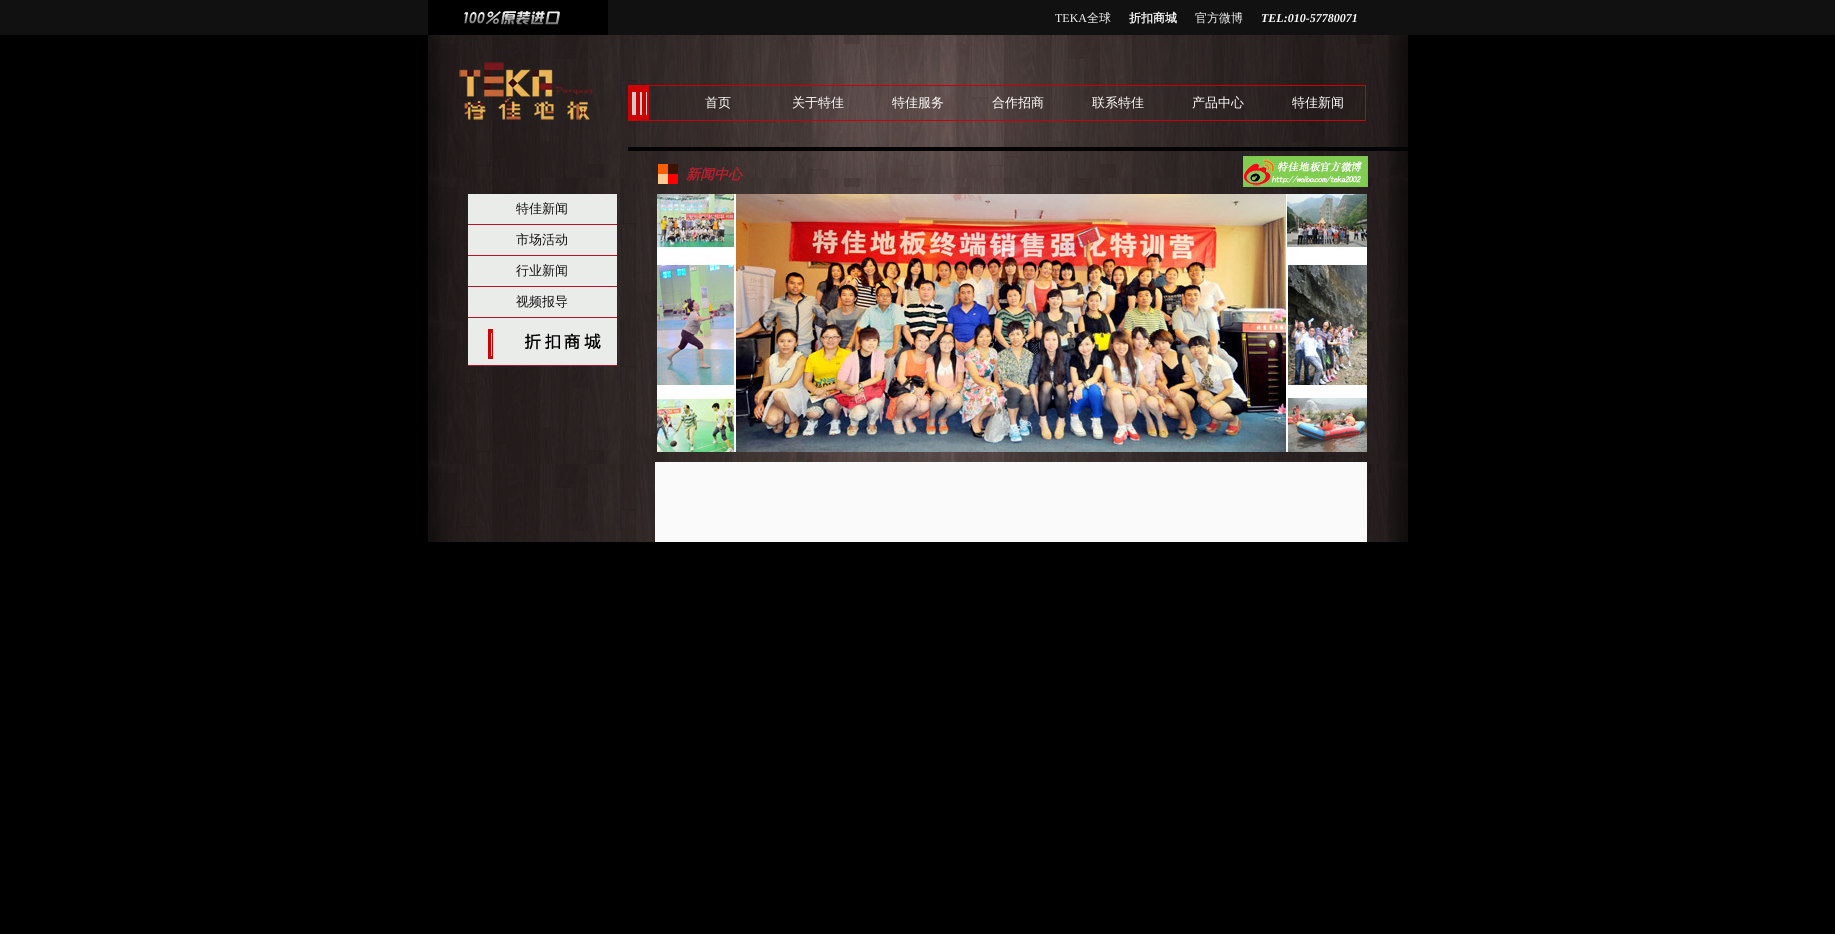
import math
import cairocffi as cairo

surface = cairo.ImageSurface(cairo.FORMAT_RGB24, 1835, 934)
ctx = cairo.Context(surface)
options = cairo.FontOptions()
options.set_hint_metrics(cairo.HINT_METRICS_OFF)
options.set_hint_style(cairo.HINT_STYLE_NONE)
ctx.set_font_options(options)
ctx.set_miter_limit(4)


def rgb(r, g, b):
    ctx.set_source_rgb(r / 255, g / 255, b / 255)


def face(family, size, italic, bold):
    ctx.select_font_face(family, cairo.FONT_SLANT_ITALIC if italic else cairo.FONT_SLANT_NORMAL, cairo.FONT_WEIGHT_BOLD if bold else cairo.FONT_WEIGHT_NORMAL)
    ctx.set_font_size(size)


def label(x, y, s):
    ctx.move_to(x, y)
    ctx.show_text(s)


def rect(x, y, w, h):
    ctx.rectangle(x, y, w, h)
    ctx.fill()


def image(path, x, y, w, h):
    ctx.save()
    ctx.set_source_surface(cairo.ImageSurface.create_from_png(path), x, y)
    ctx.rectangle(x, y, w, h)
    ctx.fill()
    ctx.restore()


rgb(0, 0, 0)
ctx.paint()
rgb(17, 17, 17)
rect(0, 0, 1835, 35)
image('image0.png', 428, 0, 180, 35)
face('Liberation Serif', 12, 0, 0)
rgb(242, 242, 242)
label(1055, 22, 'TEKA')
face('WenQuanYi Zen Hei Medium', 12, 0, 0)
label(1087, 22, '全球')
face('WenQuanYi Zen Hei', 12, 0, 1)
label(1129, 22, '折扣商城')
face('WenQuanYi Zen Hei Medium', 12, 0, 0)
label(1195, 22, '官方微博')
face('Liberation Serif', 12, 1, 1)
rgb(255, 255, 255)
label(1261, 22, 'TEL:010-57780071')
image('image1.png', 428, 35, 980, 507)
image('image2.png', 459, 62, 135, 58)
image('image3.png', 628, 85, 738, 36)
face('WenQuanYi Zen Hei Medium', 13, 0, 0)
label(705, 107, '首页')
label(792, 107, '关于特佳')
label(892, 107, '特佳服务')
label(992, 107, '合作招商')
label(1092, 107, '联系特佳')
label(1192, 107, '产品中心')
label(1292, 107, '特佳新闻')
rgb(3, 3, 3)
rect(628, 147, 780, 4)
image('image4.png', 658, 164, 20, 20)
face('WenQuanYi Zen Hei', 14, 1, 1)
rgb(189, 30, 43)
label(686, 179, '新闻中心')
image('image5.png', 1243, 156, 125, 31)
rgb(234, 236, 233)
rect(468, 194, 149, 30)
rgb(181, 21, 43)
rect(468, 224, 149, 1)
face('WenQuanYi Zen Hei Medium', 13, 0, 0)
rgb(17, 17, 17)
label(516, 213, '特佳新闻')
rgb(234, 236, 233)
rect(468, 225, 149, 30)
rgb(181, 21, 43)
rect(468, 255, 149, 1)
rgb(17, 17, 17)
label(516, 244, '市场活动')
rgb(234, 236, 233)
rect(468, 256, 149, 30)
rgb(181, 21, 43)
rect(468, 286, 149, 1)
rgb(17, 17, 17)
label(516, 275, '行业新闻')
rgb(234, 236, 233)
rect(468, 287, 149, 30)
rgb(181, 21, 43)
rect(468, 317, 149, 1)
rgb(17, 17, 17)
label(516, 306, '视频报导')
rgb(234, 236, 233)
rect(468, 318, 149, 47)
rgb(181, 21, 43)
rect(468, 365, 149, 1)
image('image6.png', 488, 329, 113, 30)
image('image7.png', 657, 194, 710, 258)
rgb(250, 250, 250)
rect(655, 462, 712, 80)
surface.write_to_png('render.png')
